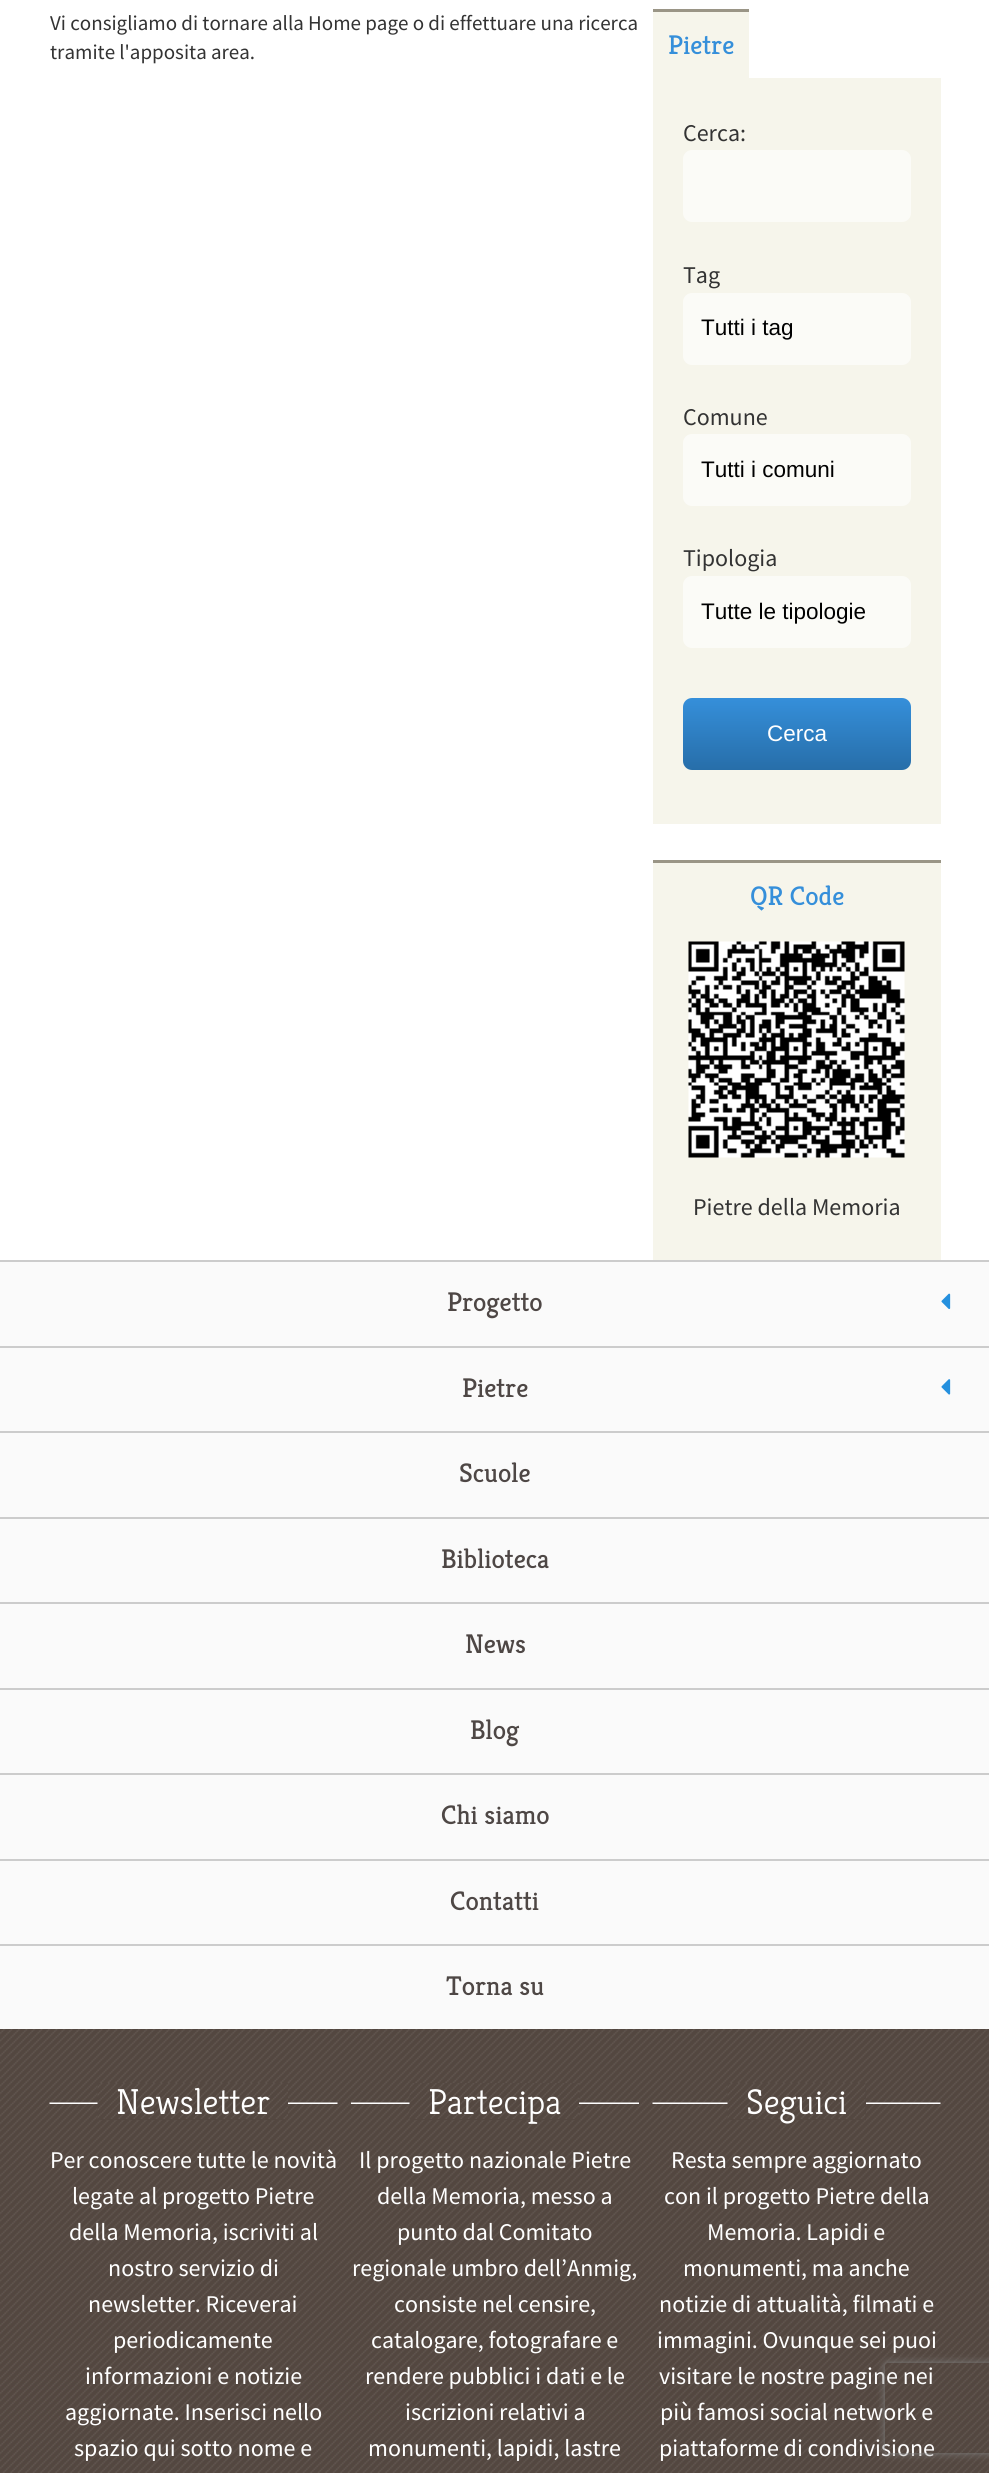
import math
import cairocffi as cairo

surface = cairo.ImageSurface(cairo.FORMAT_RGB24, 989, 2473)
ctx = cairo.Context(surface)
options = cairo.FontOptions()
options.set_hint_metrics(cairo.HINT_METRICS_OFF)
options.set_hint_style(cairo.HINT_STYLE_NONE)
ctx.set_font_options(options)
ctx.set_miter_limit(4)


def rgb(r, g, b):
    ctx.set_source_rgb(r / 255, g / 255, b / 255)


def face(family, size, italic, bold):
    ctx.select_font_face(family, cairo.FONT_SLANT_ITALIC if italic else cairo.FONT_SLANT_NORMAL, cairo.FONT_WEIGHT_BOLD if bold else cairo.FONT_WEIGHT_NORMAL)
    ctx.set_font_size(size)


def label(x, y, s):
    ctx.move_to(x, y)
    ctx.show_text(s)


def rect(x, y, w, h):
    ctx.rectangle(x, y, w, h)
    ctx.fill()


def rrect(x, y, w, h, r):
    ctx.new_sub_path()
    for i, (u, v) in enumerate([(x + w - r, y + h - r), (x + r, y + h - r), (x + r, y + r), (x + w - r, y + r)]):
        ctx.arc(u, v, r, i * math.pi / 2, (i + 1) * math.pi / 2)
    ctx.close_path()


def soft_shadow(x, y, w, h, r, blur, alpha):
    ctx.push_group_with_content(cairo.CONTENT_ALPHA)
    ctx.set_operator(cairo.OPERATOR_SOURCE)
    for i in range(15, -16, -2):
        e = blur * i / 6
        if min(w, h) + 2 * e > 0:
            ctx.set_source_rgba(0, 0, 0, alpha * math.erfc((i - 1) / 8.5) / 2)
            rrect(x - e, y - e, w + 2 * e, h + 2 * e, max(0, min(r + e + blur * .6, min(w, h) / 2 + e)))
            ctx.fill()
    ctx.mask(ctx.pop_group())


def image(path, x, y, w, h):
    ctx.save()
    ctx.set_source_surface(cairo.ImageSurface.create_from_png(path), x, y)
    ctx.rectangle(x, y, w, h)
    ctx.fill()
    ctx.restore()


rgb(255, 255, 255)
ctx.paint()
face('Source Sans Pro', 21, 0, 0)
rgb(51, 51, 51)
label(50, 30, 'Vi consigliamo di tornare alla Home page o di effettuare una ricerca')
label(50, 59, 'tramite l\'apposita area.')
rgb(246, 245, 235)
rect(653, 12, 96, 66)
rgb(154, 149, 134)
rect(653, 9, 96, 3)
face('Kreon', 27, 0, 0)
rgb(53, 143, 218)
label(668, 54, 'Pietre')
rgb(246, 245, 235)
rect(653, 78, 288, 746)
face('Source Sans Pro', 24, 0, 0)
rgb(51, 51, 51)
label(683, 141, 'Cerca:')
rgb(251, 251, 247)
rrect(683, 150, 228, 72, 9)
ctx.fill()
rgb(51, 51, 51)
label(683, 283, 'Tag')
rgb(251, 251, 247)
rrect(683, 293, 228, 72, 9)
ctx.fill()
face('Liberation Sans', 22.5, 0, 0)
rgb(0, 0, 0)
label(701, 335, 'Tutti i tag')
face('Source Sans Pro', 24, 0, 0)
rgb(51, 51, 51)
label(683, 425, 'Comune')
rgb(251, 251, 247)
rrect(683, 434, 228, 72, 9)
ctx.fill()
face('Liberation Sans', 22.5, 0, 0)
rgb(0, 0, 0)
label(701, 477, 'Tutti i comuni')
face('Source Sans Pro', 24, 0, 0)
rgb(51, 51, 51)
label(683, 566, 'Tipologia')
rgb(251, 251, 247)
rrect(683, 576, 228, 72, 9)
ctx.fill()
face('Liberation Sans', 22.5, 0, 0)
rgb(0, 0, 0)
label(701, 619, 'Tutte le tipologie')
gradient = cairo.LinearGradient(797, 698, 797, 770)
gradient.add_color_stop_rgba(0, 0.208, 0.561, 0.855, 1)
gradient.add_color_stop_rgba(1, 0.153, 0.431, 0.663, 1)
ctx.set_source(gradient)
rrect(683, 698, 228, 72, 9)
ctx.fill()
rgb(255, 255, 255)
label(767, 741, 'Cerca')
rgb(246, 245, 235)
rect(653, 863, 288, 397)
rgb(154, 149, 134)
rect(653, 860, 288, 3)
face('Kreon', 27, 0, 0)
rgb(53, 143, 218)
label(750, 905, 'QR Code')
image('image0.png', 688, 941, 217, 217)
face('Source Sans Pro', 24, 0, 0)
rgb(51, 51, 51)
label(693, 1215, 'Pietre della Memoria')
rgb(250, 250, 250)
rect(0, 1262, 989, 84)
rgb(204, 204, 204)
rect(0, 1260, 989, 2)
face('Kreon', 27, 0, 0)
rgb(78, 71, 69)
label(447, 1311, 'Progetto')
image('image1.png', 941, 1293, 10, 17)
rgb(250, 250, 250)
rect(0, 1348, 989, 83)
rgb(204, 204, 204)
rect(0, 1346, 989, 2)
rgb(78, 71, 69)
label(462, 1397, 'Pietre')
image('image2.png', 941, 1379, 10, 16)
rgb(250, 250, 250)
rect(0, 1433, 989, 84)
rgb(204, 204, 204)
rect(0, 1431, 989, 2)
rgb(78, 71, 69)
label(459, 1482, 'Scuole')
rgb(250, 250, 250)
rect(0, 1519, 989, 83)
rgb(204, 204, 204)
rect(0, 1517, 989, 2)
rgb(78, 71, 69)
label(441, 1568, 'Biblioteca')
rgb(250, 250, 250)
rect(0, 1604, 989, 84)
rgb(204, 204, 204)
rect(0, 1602, 989, 2)
rgb(78, 71, 69)
label(465, 1653, 'News')
rgb(250, 250, 250)
rect(0, 1690, 989, 83)
rgb(204, 204, 204)
rect(0, 1688, 989, 2)
rgb(78, 71, 69)
label(470, 1739, 'Blog')
rgb(250, 250, 250)
rect(0, 1775, 989, 84)
rgb(204, 204, 204)
rect(0, 1773, 989, 2)
rgb(78, 71, 69)
label(441, 1824, 'Chi siamo')
rgb(250, 250, 250)
rect(0, 1861, 989, 83)
rgb(204, 204, 204)
rect(0, 1859, 989, 2)
rgb(78, 71, 69)
label(450, 1910, 'Contatti')
rgb(250, 250, 250)
rect(0, 1946, 989, 83)
rgb(204, 204, 204)
rect(0, 1944, 989, 2)
rgb(78, 71, 69)
label(446, 1995, 'Torna su')
image('image3.png', 0, 2029, 989, 444)
image('image4.png', 49, 2102, 289, 2)
rgb(83, 71, 64)
rect(98, 2119, 190, 1)
image('image5.png', 97, 2083, 191, 36)
face('Kreon Light', 36, 0, 0)
rgb(255, 255, 255)
label(116, 2114, 'Newsletter')
face('Source Sans Pro', 24, 0, 0)
label(50, 2168, 'Per conoscere tutte le novità')
label(72, 2204, 'legate al progetto Pietre')
label(69, 2240, 'della Memoria, iscriviti al')
label(108, 2276, 'nostro servizio di')
label(88, 2312, 'newsletter. Riceverai')
label(113, 2348, 'periodicamente')
label(85, 2384, 'informazioni e notizie')
label(65, 2420, 'aggiornate. Inserisci nello')
label(74, 2456, 'spazio qui sotto nome e')
image('image6.png', 351, 2102, 288, 2)
rgb(83, 71, 64)
rect(410, 2119, 169, 1)
image('image7.png', 409, 2083, 170, 36)
face('Kreon Light', 36, 0, 0)
rgb(255, 255, 255)
label(428, 2114, 'Partecipa')
face('Source Sans Pro', 24, 0, 0)
label(359, 2168, 'Il progetto nazionale Pietre')
label(377, 2204, 'della Memoria, messo a')
label(397, 2240, 'punto dal Comitato')
label(352, 2276, 'regionale umbro dell’Anmig,')
label(394, 2312, 'consiste nel censire,')
label(371, 2348, 'catalogare, fotografare e')
label(365, 2384, 'rendere pubblici i dati e le')
label(405, 2420, 'iscrizioni relativi a')
label(368, 2456, 'monumenti, lapidi, lastre')
image('image8.png', 652, 2102, 289, 2)
rgb(83, 71, 64)
rect(728, 2084, 138, 36)
image('image9.png', 727, 2083, 139, 36)
face('Kreon Light', 36, 0, 0)
rgb(255, 255, 255)
label(746, 2114, 'Seguici')
face('Source Sans Pro', 24, 0, 0)
label(671, 2168, 'Resta sempre aggiornato')
label(664, 2204, 'con il progetto Pietre della')
label(707, 2240, 'Memoria. Lapidi e')
label(683, 2276, 'monumenti, ma anche')
label(659, 2312, 'notizie di attualità, filmati e')
label(657, 2348, 'immagini. Ovunque sei puoi')
label(659, 2384, 'visitare le nostre pagine nei')
label(660, 2420, 'più famosi social network e')
label(659, 2456, 'piattaforme di condivisione')
ctx.save()
ctx.set_fill_rule(cairo.FILL_RULE_EVEN_ODD)
ctx.new_path()
ctx.move_to(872, 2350)
ctx.line_to(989, 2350)
ctx.line_to(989, 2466)
ctx.line_to(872, 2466)
ctx.close_path()
ctx.move_to(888, 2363)
ctx.line_to(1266, 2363)
ctx.curve_to(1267.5, 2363, 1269, 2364.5, 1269, 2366)
ctx.line_to(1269, 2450)
ctx.curve_to(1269, 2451.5, 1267.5, 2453, 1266, 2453)
ctx.line_to(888, 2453)
ctx.curve_to(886.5, 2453, 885, 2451.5, 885, 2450)
ctx.line_to(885, 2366)
ctx.curve_to(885, 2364.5, 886.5, 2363, 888, 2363)
ctx.close_path()
ctx.clip()
rgb(128, 128, 128)
soft_shadow(885, 2363, 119, 90, 3, 4, 1)
ctx.restore()
surface.write_to_png('render.png')
